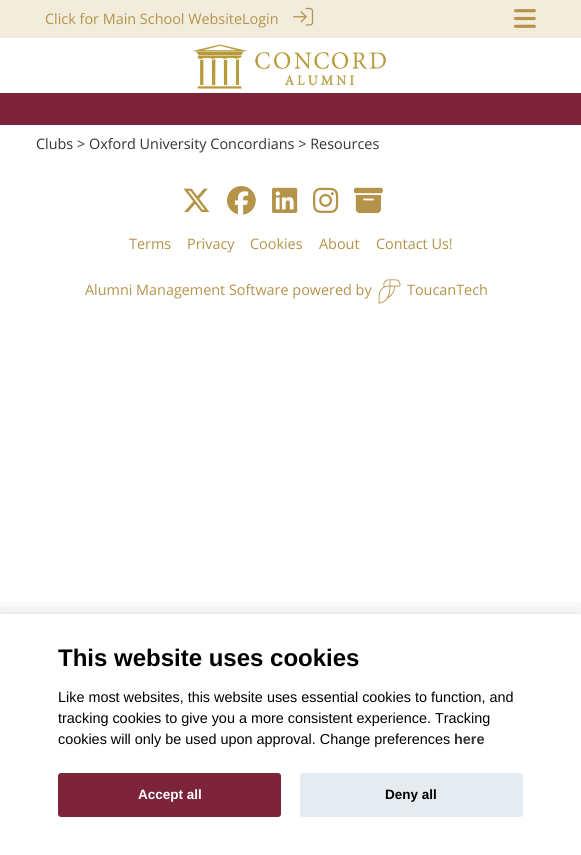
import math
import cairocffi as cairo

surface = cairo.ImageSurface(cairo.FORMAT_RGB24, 581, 855)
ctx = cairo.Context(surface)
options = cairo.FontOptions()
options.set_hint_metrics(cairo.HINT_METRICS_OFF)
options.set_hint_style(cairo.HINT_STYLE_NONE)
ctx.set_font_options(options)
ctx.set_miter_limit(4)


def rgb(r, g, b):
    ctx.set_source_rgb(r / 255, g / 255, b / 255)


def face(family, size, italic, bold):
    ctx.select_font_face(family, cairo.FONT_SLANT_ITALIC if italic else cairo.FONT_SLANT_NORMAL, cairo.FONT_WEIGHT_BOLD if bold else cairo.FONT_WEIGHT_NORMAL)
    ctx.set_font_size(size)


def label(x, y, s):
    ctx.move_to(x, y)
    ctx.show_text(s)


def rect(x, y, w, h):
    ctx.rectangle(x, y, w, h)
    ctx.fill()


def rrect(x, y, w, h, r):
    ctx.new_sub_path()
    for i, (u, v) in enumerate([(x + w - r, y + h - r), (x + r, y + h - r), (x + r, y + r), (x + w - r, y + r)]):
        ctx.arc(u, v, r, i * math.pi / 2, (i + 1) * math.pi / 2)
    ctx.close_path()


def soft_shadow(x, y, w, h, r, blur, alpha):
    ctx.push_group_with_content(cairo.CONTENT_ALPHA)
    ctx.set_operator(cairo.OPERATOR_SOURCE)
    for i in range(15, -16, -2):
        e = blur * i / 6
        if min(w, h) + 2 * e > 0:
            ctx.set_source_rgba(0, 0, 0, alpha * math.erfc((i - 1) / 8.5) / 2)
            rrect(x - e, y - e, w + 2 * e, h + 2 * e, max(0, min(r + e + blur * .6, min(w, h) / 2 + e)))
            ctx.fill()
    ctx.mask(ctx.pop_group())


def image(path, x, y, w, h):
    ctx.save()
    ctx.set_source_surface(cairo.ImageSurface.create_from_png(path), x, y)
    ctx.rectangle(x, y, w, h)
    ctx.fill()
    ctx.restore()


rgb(255, 255, 255)
ctx.paint()
rgb(242, 236, 221)
rect(0, 0, 581, 38)
face('Open Sans', 14.4, 0, 0)
rgb(181, 147, 72)
label(45, 24, 'Click for Main School WebsiteLogin')
image('image0.png', 292, 7, 22, 19)
image('image1.png', 514, 9, 22, 19)
image('image2.png', 193, 44, 194, 45)
rgb(125, 36, 58)
rect(0, 93, 581, 32)
rgb(51, 51, 51)
label(36, 149, 'Clubs > Oxford University Concordians > Resources')
image('image3.png', 183, 188, 27, 25)
image('image4.png', 227, 186, 29, 29)
image('image5.png', 272, 187, 26, 26)
image('image6.png', 313, 187, 26, 26)
image('image7.png', 354, 187, 29, 26)
rgb(181, 147, 72)
label(129, 249, 'Terms')
label(187, 249, 'Privacy')
label(250, 249, 'Cookies')
label(319, 249, 'About')
label(376, 249, 'Contact Us!')
label(85, 295, 'Alumni Management Software powered by')
image('image8.png', 378, 279, 23, 25)
label(407, 295, 'ToucanTech')
ctx.save()
ctx.rectangle(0, 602, 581, 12)
ctx.clip()
rgb(2, 2, 3)
soft_shadow(0, 624, 581, 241, 0, 15, 0.28)
ctx.restore()
face('Liberation Sans', 24, 0, 1)
rgb(0, 0, 0)
label(58, 666, 'This website uses cookies')
face('Liberation Sans', 14.4, 0, 0)
label(58, 702, 'Like most websites, this website uses essential cookies to function, and')
label(58, 723, 'tracking cookies to give you a more consistent experience. Tracking')
label(58, 744, 'cookies will only be used upon approval. Change preferences')
face('Liberation Sans', 14.4, 0, 1)
rgb(51, 51, 51)
label(454, 744, 'here')
rgb(125, 36, 58)
rrect(58, 773, 223, 44, 3)
ctx.fill()
face('Liberation Sans', 13.5, 0, 1)
rgb(255, 255, 255)
label(138, 799, 'Accept all')
rgb(229, 235, 239)
rrect(300, 773, 223, 44, 3)
ctx.fill()
rgb(0, 0, 0)
label(385, 799, 'Deny all')
surface.write_to_png('render.png')
